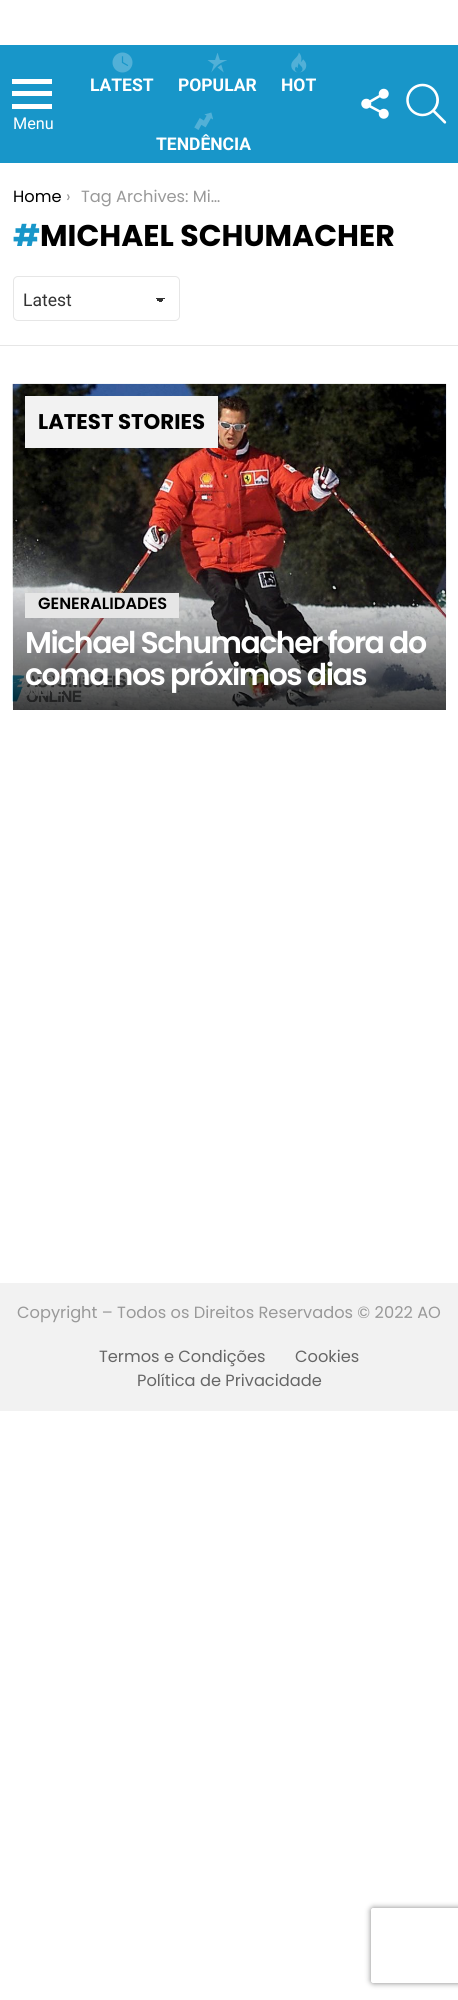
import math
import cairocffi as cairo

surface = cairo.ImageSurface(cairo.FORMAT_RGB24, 458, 2000)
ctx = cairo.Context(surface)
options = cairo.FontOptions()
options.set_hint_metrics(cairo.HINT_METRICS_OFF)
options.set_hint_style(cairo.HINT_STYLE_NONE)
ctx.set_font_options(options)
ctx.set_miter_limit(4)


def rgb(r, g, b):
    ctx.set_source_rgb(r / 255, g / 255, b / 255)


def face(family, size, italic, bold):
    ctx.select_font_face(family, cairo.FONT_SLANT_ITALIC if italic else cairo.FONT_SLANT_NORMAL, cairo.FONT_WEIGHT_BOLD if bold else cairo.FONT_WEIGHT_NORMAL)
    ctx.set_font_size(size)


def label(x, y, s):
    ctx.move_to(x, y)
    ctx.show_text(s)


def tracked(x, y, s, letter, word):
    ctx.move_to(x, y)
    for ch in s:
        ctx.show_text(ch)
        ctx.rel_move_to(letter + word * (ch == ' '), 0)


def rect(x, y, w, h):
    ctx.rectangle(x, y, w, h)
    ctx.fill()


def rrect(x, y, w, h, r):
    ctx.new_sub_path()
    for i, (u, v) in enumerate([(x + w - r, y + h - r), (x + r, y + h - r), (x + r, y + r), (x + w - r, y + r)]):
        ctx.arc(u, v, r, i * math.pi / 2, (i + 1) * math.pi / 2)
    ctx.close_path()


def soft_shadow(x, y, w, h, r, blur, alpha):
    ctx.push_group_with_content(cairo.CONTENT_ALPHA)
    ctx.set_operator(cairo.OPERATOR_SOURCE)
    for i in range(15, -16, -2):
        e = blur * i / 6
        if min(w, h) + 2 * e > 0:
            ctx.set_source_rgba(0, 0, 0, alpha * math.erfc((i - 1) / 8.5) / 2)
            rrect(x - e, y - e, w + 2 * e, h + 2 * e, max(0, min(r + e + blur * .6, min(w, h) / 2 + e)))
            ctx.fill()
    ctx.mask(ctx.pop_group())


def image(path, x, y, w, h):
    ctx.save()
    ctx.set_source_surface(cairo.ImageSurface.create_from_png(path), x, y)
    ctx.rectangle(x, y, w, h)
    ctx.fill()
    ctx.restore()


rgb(255, 255, 255)
ctx.paint()
rgb(24, 150, 201)
rect(0, 45, 458, 118)
rgb(255, 255, 255)
ctx.new_path()
ctx.move_to(12, 79)
ctx.line_to(52, 79)
ctx.line_to(52, 84)
ctx.line_to(12, 84)
ctx.close_path()
ctx.move_to(12, 91)
ctx.line_to(52, 91)
ctx.line_to(52, 96)
ctx.line_to(12, 96)
ctx.close_path()
ctx.move_to(12, 104)
ctx.line_to(52, 104)
ctx.line_to(52, 109)
ctx.line_to(12, 109)
ctx.close_path()
ctx.fill()
face('Roboto', 16.25, 0, 0)
label(13, 129, 'Menu')
image('image0.png', 112, 52, 21, 21)
face('Roboto', 17.5, 0, 1)
label(90, 91, 'LATEST')
image('image1.png', 207, 53, 20, 20)
label(178, 91, 'POPULAR')
image('image2.png', 291, 52, 16, 21)
label(281, 91, 'HOT')
image('image3.png', 194, 112, 19, 18)
label(156, 150, 'TENDÊNCIA')
image('image4.png', 361, 88, 28, 31)
image('image5.png', 406, 83, 41, 41)
face('Poppins', 16.25, 0, 0)
rgb(0, 0, 0)
label(13, 202, 'Home')
rgb(153, 153, 153)
label(66, 202, '›')
label(81, 202, 'Tag Archives: Mi…')
face('Poppins', 30, 0, 1)
rgb(24, 150, 201)
label(13, 246, '#')
rgb(0, 0, 0)
label(40, 246, 'MICHAEL SCHUMACHER')
gradient = cairo.LinearGradient(160, 297, 166, 303)
gradient.add_color_stop_rgba(0.5, 0.2, 0.2, 0.2, 1)
gradient.add_color_stop_rgba(0.5, 1, 1, 1, 1)
ctx.set_source(gradient)
rect(160, 298, 6, 4)
gradient = cairo.LinearGradient(154, 303, 160, 297)
gradient.add_color_stop_rgba(0.5, 1, 1, 1, 1)
gradient.add_color_stop_rgba(0.5, 0.2, 0.2, 0.2, 1)
ctx.set_source(gradient)
rect(154, 298, 6, 4)
rrect(13.5, 276.5, 166, 44, 4.5)
rgb(230, 230, 230)
ctx.set_line_width(1)
ctx.stroke()
face('Roboto', 17.5, 0, 0)
rgb(51, 51, 51)
label(23, 306, 'Latest')
rgb(230, 230, 230)
rect(0, 345, 458, 1)
image('image6.png', 12, 383, 435, 327)
rgb(242, 242, 242)
rect(25, 396, 193, 52)
face('Poppins', 21.25, 0, 1)
rgb(0, 0, 0)
label(38, 429, 'LATEST STORIES')
rgb(230, 230, 230)
rect(25, 593, 154, 25)
face('Poppins SemiBold', 16.25, 0, 0)
rgb(0, 0, 0)
label(38, 609, 'GENERALIDADES')
face('Poppins SemiBold', 30, 0, 0)
rgb(255, 255, 255)
tracked(25, 653, 'Michael Schumacher fora do', -1.5, 0)
tracked(25, 685, 'coma nos próximos dias', -1.5, 0)
rgb(242, 242, 242)
rect(0, 1283, 458, 128)
face('Poppins', 16.25, 0, 0)
rgb(153, 153, 153)
label(17, 1318, 'Copyright – Todos os Direitos Reservados © 2022 AO')
rgb(102, 102, 102)
label(99, 1362, 'Termos e Condições')
label(295, 1362, 'Cookies')
label(137, 1386, 'Política de Privacidade')
ctx.save()
ctx.set_fill_rule(cairo.FILL_RULE_EVEN_ODD)
ctx.new_path()
ctx.move_to(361, 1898)
ctx.line_to(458, 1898)
ctx.line_to(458, 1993)
ctx.line_to(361, 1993)
ctx.close_path()
ctx.move_to(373.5, 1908)
ctx.line_to(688.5, 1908)
ctx.curve_to(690, 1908, 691, 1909, 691, 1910.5)
ctx.line_to(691, 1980.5)
ctx.curve_to(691, 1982, 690, 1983, 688.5, 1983)
ctx.line_to(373.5, 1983)
ctx.curve_to(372, 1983, 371, 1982, 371, 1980.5)
ctx.line_to(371, 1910.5)
ctx.curve_to(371, 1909, 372, 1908, 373.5, 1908)
ctx.close_path()
ctx.clip()
rgb(128, 128, 128)
soft_shadow(371, 1908, 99, 75, 2.5, 3, 1)
ctx.restore()
surface.write_to_png('render.png')
